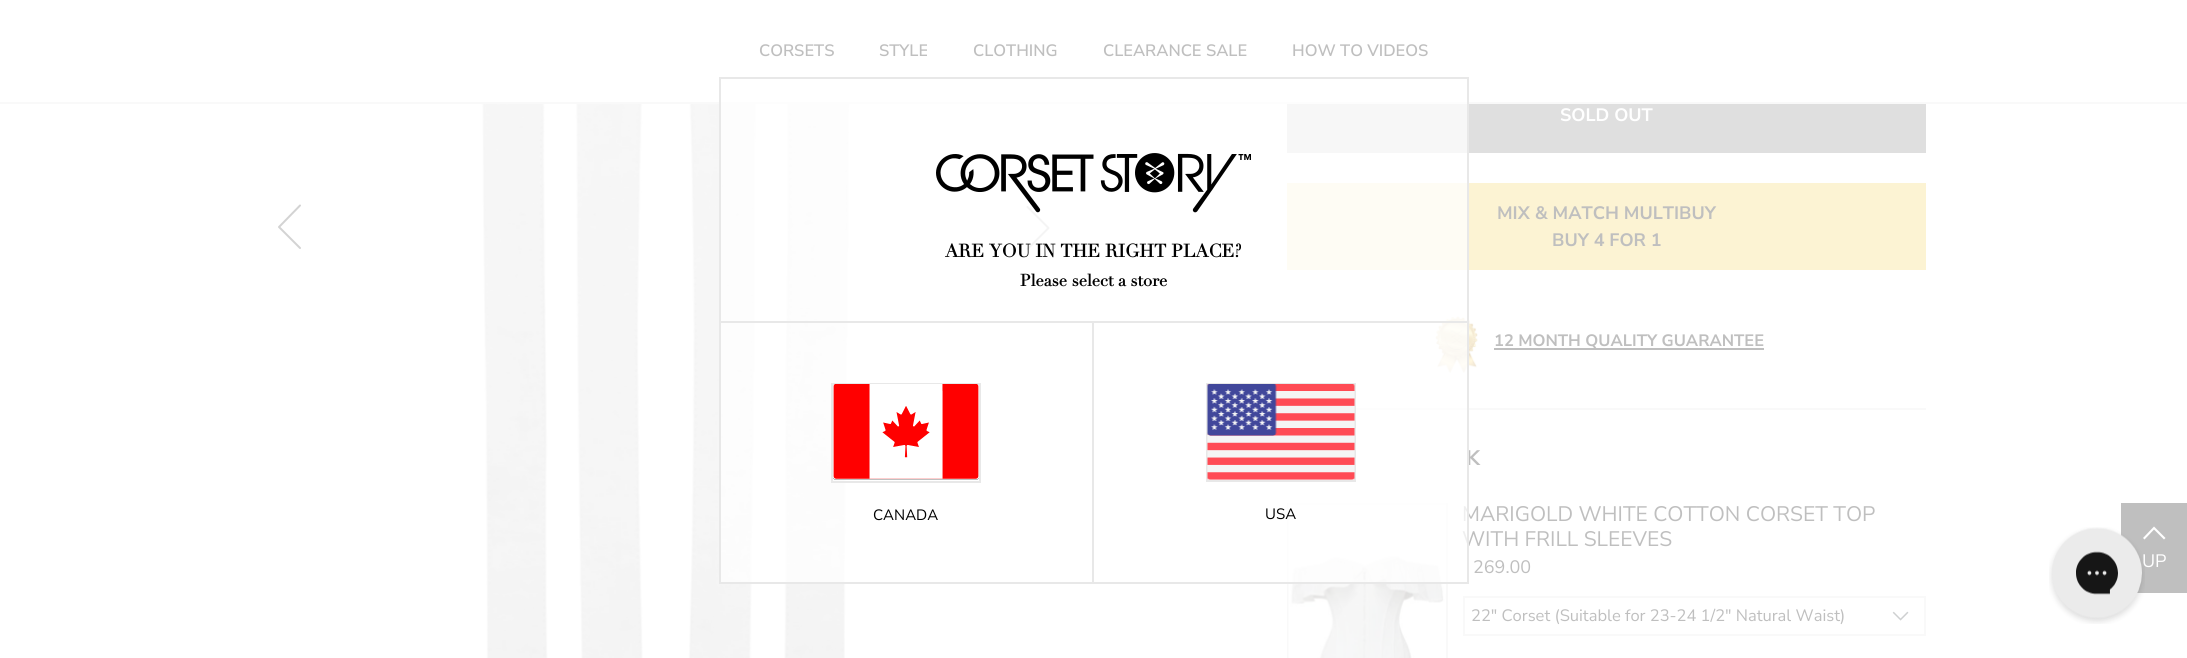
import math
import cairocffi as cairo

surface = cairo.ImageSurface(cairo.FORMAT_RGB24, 2187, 658)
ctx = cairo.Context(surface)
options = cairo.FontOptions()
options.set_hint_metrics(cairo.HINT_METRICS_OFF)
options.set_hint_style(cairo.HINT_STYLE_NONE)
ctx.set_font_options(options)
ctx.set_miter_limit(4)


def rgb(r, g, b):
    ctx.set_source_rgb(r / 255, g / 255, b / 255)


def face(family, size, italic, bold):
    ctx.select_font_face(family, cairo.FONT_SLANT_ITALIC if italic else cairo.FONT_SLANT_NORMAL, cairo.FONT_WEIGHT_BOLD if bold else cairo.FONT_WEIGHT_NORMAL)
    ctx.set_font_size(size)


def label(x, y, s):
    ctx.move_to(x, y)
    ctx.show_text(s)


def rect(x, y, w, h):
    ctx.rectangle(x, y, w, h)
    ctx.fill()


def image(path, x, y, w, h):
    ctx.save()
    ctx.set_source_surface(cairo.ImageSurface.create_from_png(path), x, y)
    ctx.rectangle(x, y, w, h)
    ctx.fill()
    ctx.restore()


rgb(255, 255, 255)
ctx.paint()
rgb(249, 249, 249)
rect(0, 102, 2187, 2)
face('Nunito Sans SemiBold', 16.5, 0, 0)
rgb(191, 191, 191)
label(759, 56, 'CORSETS')
label(879, 56, 'STYLE')
label(973, 56, 'CLOTHING')
label(1103, 56, 'CLEARANCE SALE')
label(1292, 56, 'HOW TO VIDEOS')
rect(2121, 503, 66, 90)
rgb(255, 255, 255)
ctx.new_path()
ctx.move_to(2154, 526.5)
ctx.line_to(2165.5, 538)
ctx.line_to(2164, 539.5)
ctx.line_to(2154, 529.5)
ctx.line_to(2144.5, 539.5)
ctx.line_to(2143, 538)
ctx.close_path()
ctx.fill()
face('Nunito Sans', 18, 0, 0)
label(2142, 567, 'UP')
ctx.new_path()
ctx.move_to(300, 248)
ctx.line_to(279, 227)
ctx.line_to(300, 205.5)
rgb(211, 211, 211)
ctx.set_line_cap(cairo.LINE_CAP_ROUND)
ctx.set_line_join(cairo.LINE_JOIN_ROUND)
ctx.stroke()
image('image0.png', 481, 104, 370, 554)
ctx.new_path()
ctx.move_to(1027.5, 207)
ctx.line_to(1048.5, 228)
ctx.line_to(1027.5, 249)
ctx.stroke()
rgb(223, 223, 223)
rect(1287, 104, 639, 49)
face('Nunito Sans', 18, 0, 1)
rgb(255, 255, 255)
label(1560, 121, 'SOLD OUT')
rgb(252, 243, 211)
rect(1287, 183, 639, 87)
rgb(191, 191, 191)
label(1497, 219, 'MIX & MATCH MULTIBUY')
label(1552, 246, 'BUY 4 FOR 1')
image('image1.png', 1435, 316, 43, 58)
rect(1494, 348, 270, 2)
face('Nunito Sans', 16.5, 0, 1)
label(1494, 346, '12 MONTH QUALITY GUARANTEE')
rgb(249, 249, 249)
rect(1356, 408, 570, 2)
face('Nunito Sans', 21, 0, 1)
rgb(191, 191, 191)
label(1466, 465, 'K')
ctx.rectangle(1288, 504, 159, 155)
rgb(249, 249, 249)
ctx.set_line_cap(cairo.LINE_CAP_BUTT)
ctx.set_line_join(cairo.LINE_JOIN_MITER)
ctx.stroke()
image('image2.png', 1288, 503, 158, 155)
face('Nunito Sans', 21, 0, 0)
rgb(191, 191, 191)
label(1462, 521, 'MARIGOLD WHITE COTTON CORSET TOP')
label(1462, 546, 'WITH FRILL SLEEVES')
face('Nunito Sans', 18, 0, 0)
label(1473, 573, '269.00')
image('image3.png', 1892, 611, 17, 10)
ctx.rectangle(1464, 597, 461, 38)
rgb(249, 249, 249)
ctx.stroke()
face('Nunito Sans', 16.5, 0, 0)
rgb(191, 191, 191)
label(1471, 621, '22" Corset (Suitable for 23-24 1/2" Natural Waist)')
ctx.set_source_rgba(1, 1, 1, 0.75)
rect(721, 102, 746, 480)
ctx.rectangle(720, 78, 748, 505)
rgb(232, 232, 232)
ctx.stroke()
image('image4.png', 936, 153, 315, 60)
face('Didot', 18, 0, 1)
rgb(0, 0, 0)
label(945, 257, 'ARE YOU IN THE RIGHT PLACE?')
face('Didot', 16.5, 0, 1)
label(1020, 286, 'Please select a store')
rgb(232, 232, 232)
rect(720, 321, 747, 2)
rect(1092, 323, 2, 259)
ctx.rectangle(832, 384, 148, 98)
ctx.stroke()
image('image5.png', 833, 384, 146, 96)
face('Nunito Sans', 15, 0, 0)
rgb(0, 0, 0)
label(873, 520, 'CANADA')
ctx.rectangle(1207, 384, 148, 97)
rgb(232, 232, 232)
ctx.stroke()
image('image6.png', 1207, 384, 148, 96)
rgb(0, 0, 0)
label(1265, 519, 'USA')
image('image7.png', 2049, 527, 96, 97)
surface.write_to_png('render.png')
